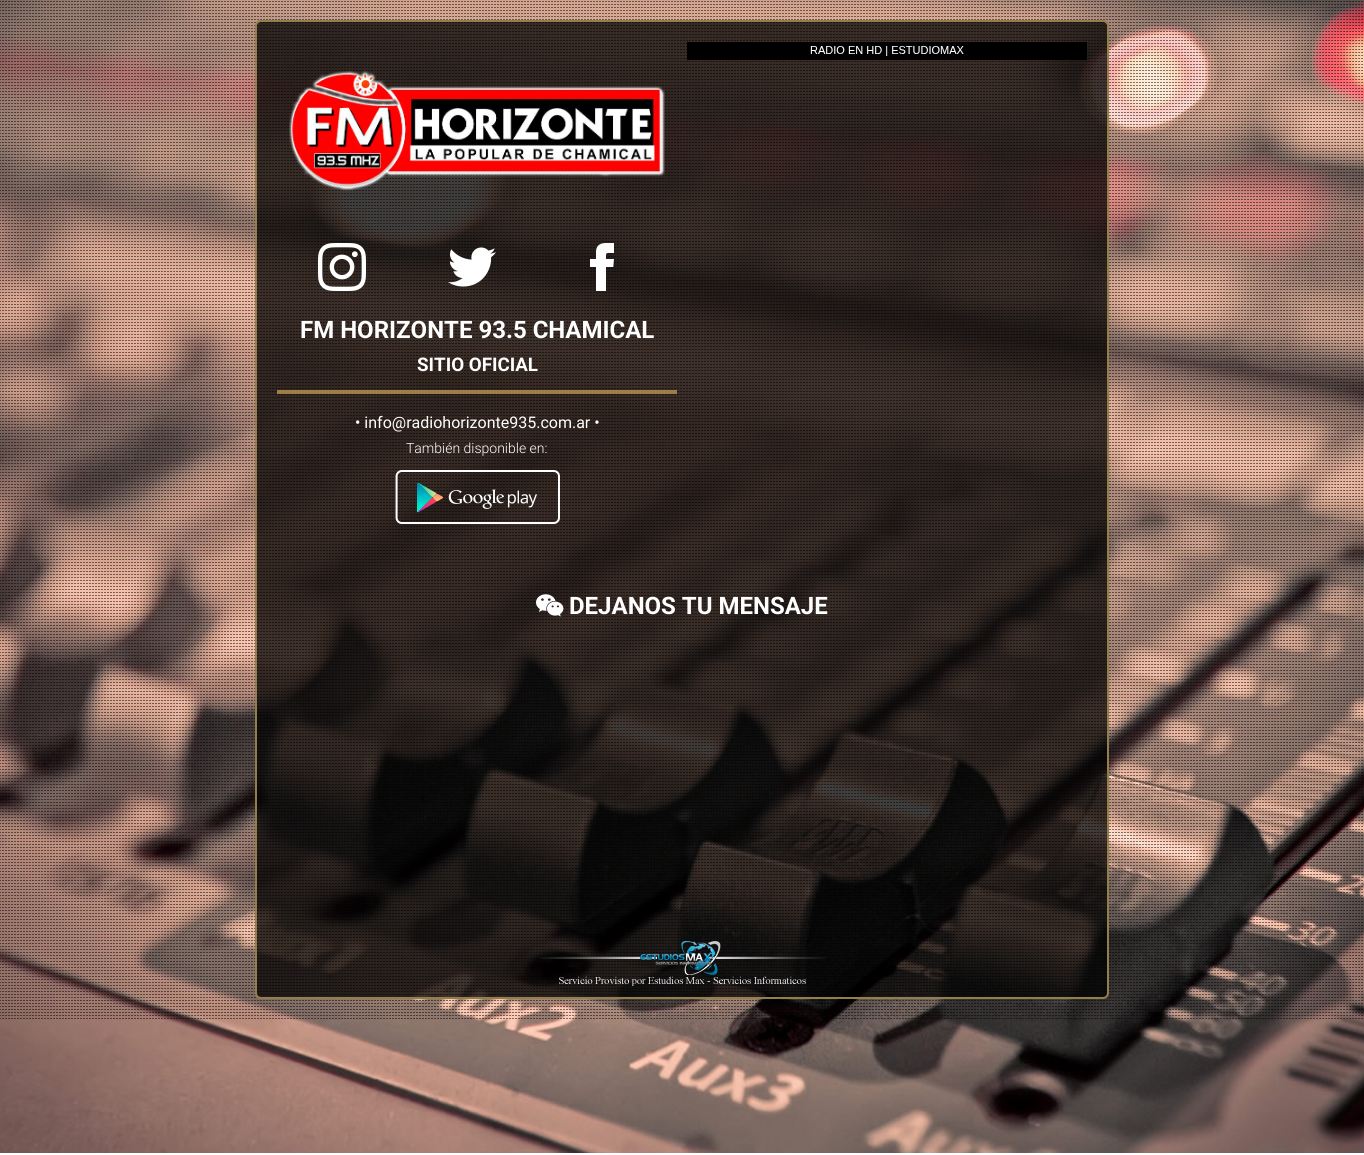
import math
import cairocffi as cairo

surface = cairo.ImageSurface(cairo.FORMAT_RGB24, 1364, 1155)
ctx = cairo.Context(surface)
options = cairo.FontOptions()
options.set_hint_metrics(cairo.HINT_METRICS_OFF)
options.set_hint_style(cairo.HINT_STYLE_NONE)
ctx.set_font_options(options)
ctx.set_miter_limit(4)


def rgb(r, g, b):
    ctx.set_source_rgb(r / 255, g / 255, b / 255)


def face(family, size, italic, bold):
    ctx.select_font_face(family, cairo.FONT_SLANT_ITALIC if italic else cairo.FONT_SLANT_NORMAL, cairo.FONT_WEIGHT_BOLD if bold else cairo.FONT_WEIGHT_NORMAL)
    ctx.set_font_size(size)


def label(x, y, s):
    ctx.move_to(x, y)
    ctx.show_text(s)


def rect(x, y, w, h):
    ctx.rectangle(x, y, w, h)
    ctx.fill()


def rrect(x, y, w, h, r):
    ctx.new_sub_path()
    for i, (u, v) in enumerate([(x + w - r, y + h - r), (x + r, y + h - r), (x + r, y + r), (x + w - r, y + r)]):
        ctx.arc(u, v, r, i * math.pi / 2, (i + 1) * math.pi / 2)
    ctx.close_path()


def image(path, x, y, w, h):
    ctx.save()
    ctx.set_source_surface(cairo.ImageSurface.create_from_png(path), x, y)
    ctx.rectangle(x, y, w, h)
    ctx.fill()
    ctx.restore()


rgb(255, 255, 255)
ctx.paint()
image('image0.png', 0, 0, 1364, 1153)
image('image1.png', 0, 1, 1363, 1018)
ctx.set_source_rgba(0, 0, 0, 0.75)
rrect(256, 21, 852, 977, 5)
ctx.fill_preserve()
rgb(147, 127, 76)
ctx.stroke()
image('image2.png', 687, 42, 400, 18)
image('image3.png', 289, 70, 376, 121)
image('image4.png', 318, 243, 48, 48)
image('image5.png', 448, 247, 48, 40)
image('image6.png', 590, 243, 24, 48)
face('Roboto', 24, 0, 1)
rgb(255, 255, 255)
label(300, 338, 'FM HORIZONTE 93.5 CHAMICAL')
face('Roboto', 18.75, 0, 1)
label(417, 371, 'SITIO OFICIAL')
rgb(157, 125, 72)
rect(277, 390, 400, 4)
face('Roboto', 16, 0, 0)
rgb(255, 255, 255)
label(355, 428, '• info@radiohorizonte935.com.ar •')
face('Roboto Light', 14, 0, 0)
label(406, 453, 'También disponible en:')
image('image7.png', 395, 470, 165, 54)
image('image8.png', 536, 594, 28, 23)
face('Roboto', 24, 0, 1)
label(569, 614, 'DEJANOS TU MENSAJE')
image('image9.png', 539, 941, 287, 45)
surface.write_to_png('render.png')
